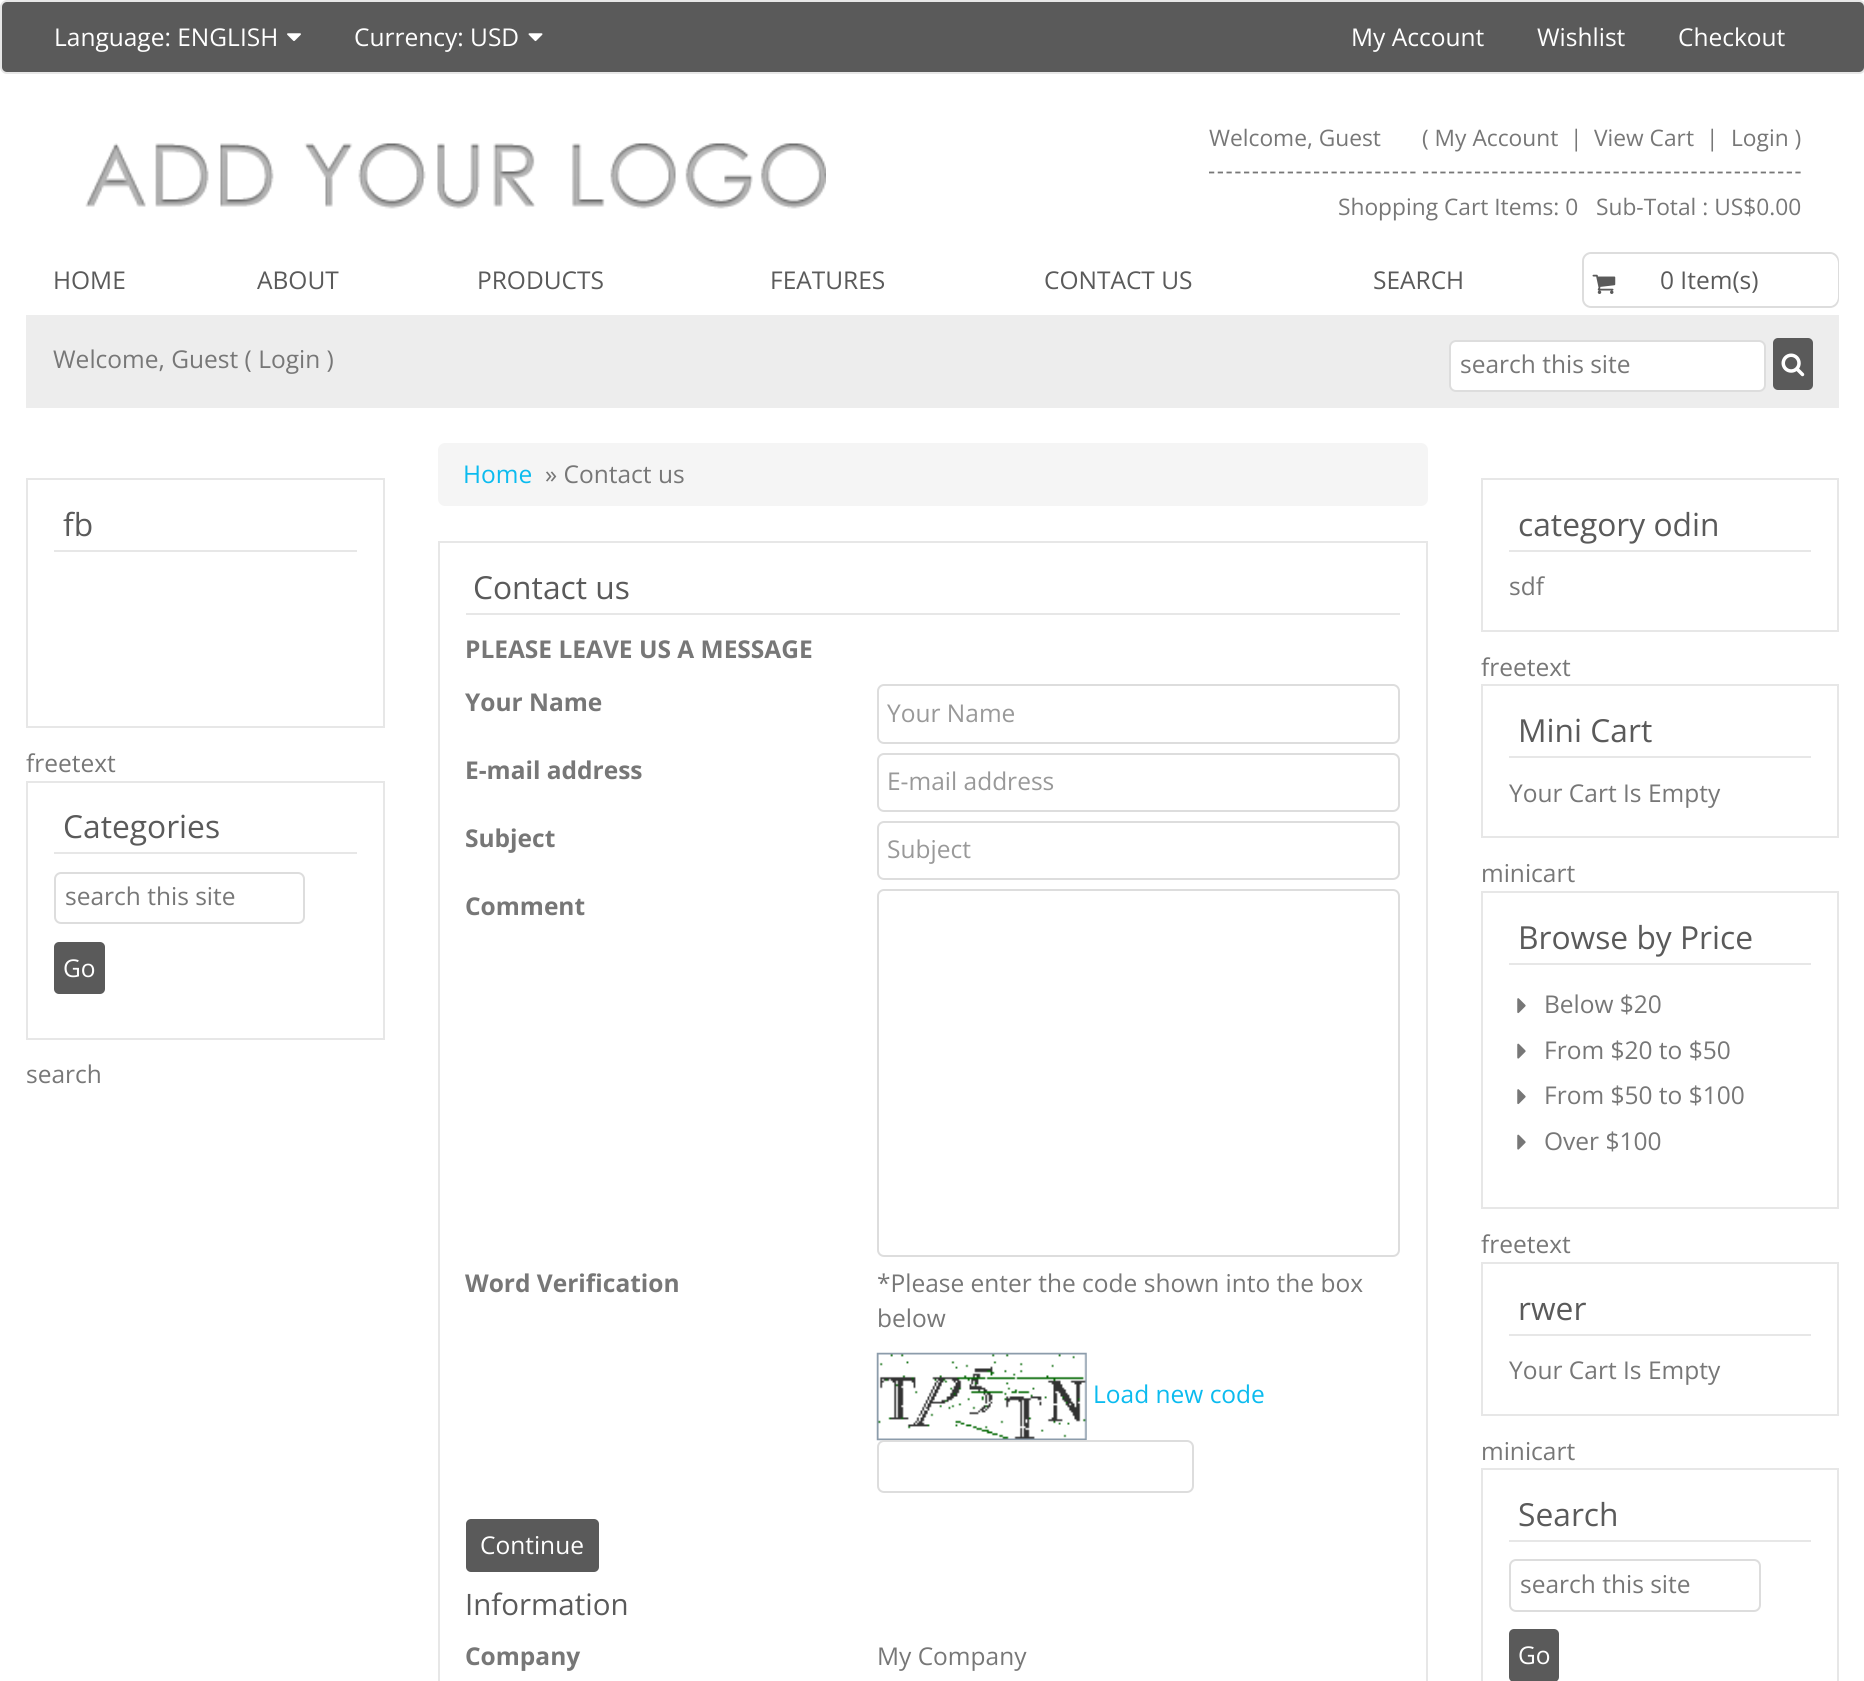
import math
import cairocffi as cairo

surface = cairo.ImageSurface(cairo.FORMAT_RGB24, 1864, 1681)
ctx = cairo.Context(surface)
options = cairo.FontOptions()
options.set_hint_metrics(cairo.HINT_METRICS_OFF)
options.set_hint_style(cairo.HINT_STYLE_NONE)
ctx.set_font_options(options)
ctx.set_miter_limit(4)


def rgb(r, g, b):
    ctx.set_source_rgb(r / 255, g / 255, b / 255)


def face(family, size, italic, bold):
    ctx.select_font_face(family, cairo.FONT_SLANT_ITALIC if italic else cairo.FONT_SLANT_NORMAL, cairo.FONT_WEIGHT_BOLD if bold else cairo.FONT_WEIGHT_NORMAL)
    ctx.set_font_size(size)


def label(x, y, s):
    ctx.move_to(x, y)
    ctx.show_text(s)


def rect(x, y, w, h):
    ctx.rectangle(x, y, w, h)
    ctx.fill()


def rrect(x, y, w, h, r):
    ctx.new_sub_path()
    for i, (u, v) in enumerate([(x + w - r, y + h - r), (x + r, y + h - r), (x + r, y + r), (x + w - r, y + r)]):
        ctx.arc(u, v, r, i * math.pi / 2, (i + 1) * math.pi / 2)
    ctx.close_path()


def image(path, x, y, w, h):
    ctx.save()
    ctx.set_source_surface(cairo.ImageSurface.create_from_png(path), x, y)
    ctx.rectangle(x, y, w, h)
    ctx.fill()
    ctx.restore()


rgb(255, 255, 255)
ctx.paint()
rgb(90, 90, 90)
rrect(1, 1, 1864, 72, 6)
ctx.fill_preserve()
rgb(231, 231, 231)
ctx.stroke()
face('Open Sans', 24.5, 0, 0)
rgb(255, 255, 255)
label(54, 46, 'Language: ENGLISH')
image('image0.png', 287, 33, 14, 8)
label(354, 46, 'Currency: USD')
image('image1.png', 528, 33, 15, 9)
label(1351, 46, 'My Account')
label(1537, 46, 'Wishlist')
label(1678, 46, 'Checkout')
image('image2.png', 85, 143, 741, 66)
ctx.new_path()
ctx.move_to(1209, 172.5)
ctx.line_to(1416, 172.5)
rgb(119, 119, 119)
ctx.set_line_width(1.8)
ctx.set_dash([5.25, 3.5])
ctx.stroke()
face('Open Sans', 22.75, 0, 0)
label(1209, 146, 'Welcome, Guest')
ctx.new_path()
ctx.move_to(1423, 172.5)
ctx.line_to(1801, 172.5)
ctx.set_dash([5.25, 3.41])
ctx.stroke()
label(1422, 146, '( My Account')
label(1570, 146, '|')
label(1594, 146, 'View Cart')
label(1706, 146, '|')
label(1731, 146, 'Login )')
label(1338, 215, 'Shopping Cart Items: 0   Sub-Total : US$0.00')
face('Open Sans', 24.5, 0, 0)
rgb(90, 90, 90)
label(53, 289, 'HOME')
label(257, 289, 'ABOUT')
label(477, 289, 'PRODUCTS')
label(770, 289, 'FEATURES')
label(1044, 289, 'CONTACT US')
label(1373, 289, 'SEARCH')
rrect(1583, 253, 255, 54, 8)
rgb(221, 221, 221)
ctx.set_line_width(2)
ctx.set_dash([])
ctx.stroke()
rgb(255, 255, 255)
rrect(1584, 254, 254, 52, 9)
ctx.fill()
image('image3.png', 1592, 274, 24, 20)
rgb(90, 90, 90)
label(1660, 289, '0 Item(s)')
rgb(237, 237, 237)
rect(26, 315, 1813, 93)
rgb(119, 119, 119)
label(53, 368, 'Welcome, Guest ( Login )')
rgb(255, 255, 255)
rrect(1450, 341, 315, 50, 6)
ctx.fill_preserve()
rgb(221, 221, 221)
ctx.stroke()
rgb(119, 119, 119)
label(1460, 373, 'search this site')
rgb(90, 90, 90)
rrect(1773, 338, 40, 52, 5)
ctx.fill()
image('image4.png', 1781, 353, 24, 24)
ctx.rectangle(27, 479, 357, 248)
rgb(231, 231, 231)
ctx.stroke()
rect(54, 550, 303, 2)
face('Open Sans', 31.75, 0, 0)
rgb(90, 90, 90)
label(63, 536, 'fb')
face('Open Sans', 24.5, 0, 0)
rgb(119, 119, 119)
label(26, 772, 'freetext')
ctx.rectangle(27, 782, 357, 257)
rgb(231, 231, 231)
ctx.stroke()
rect(54, 852, 303, 2)
face('Open Sans', 31.75, 0, 0)
rgb(90, 90, 90)
label(63, 838, 'Categories')
rrect(55, 873, 249, 50, 6)
rgb(221, 221, 221)
ctx.stroke()
face('Open Sans', 24.5, 0, 0)
rgb(119, 119, 119)
label(65, 905, 'search this site')
rgb(90, 90, 90)
rrect(54, 942, 51, 52, 5)
ctx.fill()
rgb(255, 255, 255)
label(63, 977, 'Go')
rgb(119, 119, 119)
label(26, 1083, 'search')
rgb(245, 245, 245)
rrect(438, 443, 990, 63, 7)
ctx.fill()
rgb(11, 187, 239)
label(463, 483, 'Home')
rgb(119, 119, 119)
label(545, 483, '» Contact us')
ctx.rectangle(439, 542, 988, 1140)
rgb(231, 231, 231)
ctx.stroke()
rect(466, 613, 934, 2)
face('Open Sans', 31.75, 0, 0)
rgb(90, 90, 90)
label(473, 599, 'Contact us')
face('Open Sans', 24.5, 0, 1)
rgb(119, 119, 119)
label(465, 658, 'PLEASE LEAVE US A MESSAGE')
label(465, 711, 'Your Name')
rrect(878, 685, 521, 58, 6)
rgb(221, 221, 221)
ctx.stroke()
face('Open Sans', 24.5, 0, 0)
rgb(153, 153, 153)
label(887, 722, 'Your Name')
face('Open Sans', 24.5, 0, 1)
rgb(119, 119, 119)
label(465, 779, 'E-mail address')
rrect(878, 754, 521, 57, 6)
rgb(221, 221, 221)
ctx.stroke()
face('Open Sans', 24.5, 0, 0)
rgb(153, 153, 153)
label(887, 790, 'E-mail address')
face('Open Sans', 24.5, 0, 1)
rgb(119, 119, 119)
label(465, 847, 'Subject')
rrect(878, 822, 521, 57, 6)
rgb(221, 221, 221)
ctx.stroke()
face('Open Sans', 24.5, 0, 0)
rgb(153, 153, 153)
label(887, 858, 'Subject')
face('Open Sans', 24.5, 0, 1)
rgb(119, 119, 119)
label(465, 915, 'Comment')
rrect(878, 890, 521, 366, 6)
rgb(221, 221, 221)
ctx.stroke()
rgb(119, 119, 119)
label(465, 1292, 'Word Verification')
face('Open Sans', 24.5, 0, 0)
label(877, 1292, '*Please enter the code shown into the box')
label(877, 1327, 'below')
image('image5.png', 876, 1352, 211, 89)
rgb(11, 187, 239)
label(1093, 1403, 'Load new code')
rgb(255, 255, 255)
rrect(878, 1441, 315, 51, 6)
ctx.fill_preserve()
rgb(221, 221, 221)
ctx.stroke()
rgb(90, 90, 90)
rrect(466, 1519, 133, 53, 5)
ctx.fill()
rgb(255, 255, 255)
label(480, 1554, 'Continue')
face('Open Sans', 29.5, 0, 0)
rgb(90, 90, 90)
label(465, 1615, 'Information')
face('Open Sans', 24.5, 0, 1)
rgb(119, 119, 119)
label(465, 1665, 'Company')
face('Open Sans', 24.5, 0, 0)
label(877, 1665, 'My Company')
ctx.rectangle(1482, 479, 356, 152)
rgb(231, 231, 231)
ctx.stroke()
rect(1509, 550, 302, 2)
face('Open Sans', 31.75, 0, 0)
rgb(90, 90, 90)
label(1518, 536, 'category odin')
face('Open Sans', 24.5, 0, 0)
rgb(119, 119, 119)
label(1509, 595, 'sdf')
label(1481, 676, 'freetext')
ctx.rectangle(1482, 685, 356, 152)
rgb(231, 231, 231)
ctx.stroke()
rect(1509, 756, 302, 2)
face('Open Sans', 31.75, 0, 0)
rgb(90, 90, 90)
label(1518, 742, 'Mini Cart')
face('Open Sans', 24.5, 0, 0)
rgb(119, 119, 119)
label(1509, 802, 'Your Cart Is Empty')
label(1481, 882, 'minicart')
ctx.rectangle(1482, 892, 356, 316)
rgb(231, 231, 231)
ctx.stroke()
rect(1509, 963, 302, 2)
face('Open Sans', 31.75, 0, 0)
rgb(90, 90, 90)
label(1518, 949, 'Browse by Price')
image('image6.png', 1517, 998, 9, 16)
face('Open Sans', 24.5, 0, 0)
rgb(119, 119, 119)
label(1544, 1013, 'Below $20')
image('image7.png', 1517, 1043, 9, 16)
label(1544, 1059, 'From $20 to $50')
image('image6.png', 1517, 1089, 9, 16)
label(1544, 1104, 'From $50 to $100')
image('image7.png', 1517, 1134, 9, 16)
label(1544, 1150, 'Over $100')
label(1481, 1253, 'freetext')
ctx.rectangle(1482, 1263, 356, 152)
rgb(231, 231, 231)
ctx.stroke()
rect(1509, 1334, 302, 2)
face('Open Sans', 31.75, 0, 0)
rgb(90, 90, 90)
label(1518, 1320, 'rwer')
face('Open Sans', 24.5, 0, 0)
rgb(119, 119, 119)
label(1509, 1379, 'Your Cart Is Empty')
label(1481, 1460, 'minicart')
ctx.rectangle(1482, 1469, 356, 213)
rgb(231, 231, 231)
ctx.stroke()
rect(1509, 1540, 302, 2)
face('Open Sans', 31.75, 0, 0)
rgb(90, 90, 90)
label(1518, 1526, 'Search')
rrect(1510, 1560, 250, 51, 6)
rgb(221, 221, 221)
ctx.stroke()
face('Open Sans', 24.5, 0, 0)
rgb(119, 119, 119)
label(1520, 1593, 'search this site')
rgb(90, 90, 90)
rrect(1509, 1629, 50, 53, 5)
ctx.fill()
rgb(255, 255, 255)
label(1518, 1664, 'Go')
surface.write_to_png('render.png')
